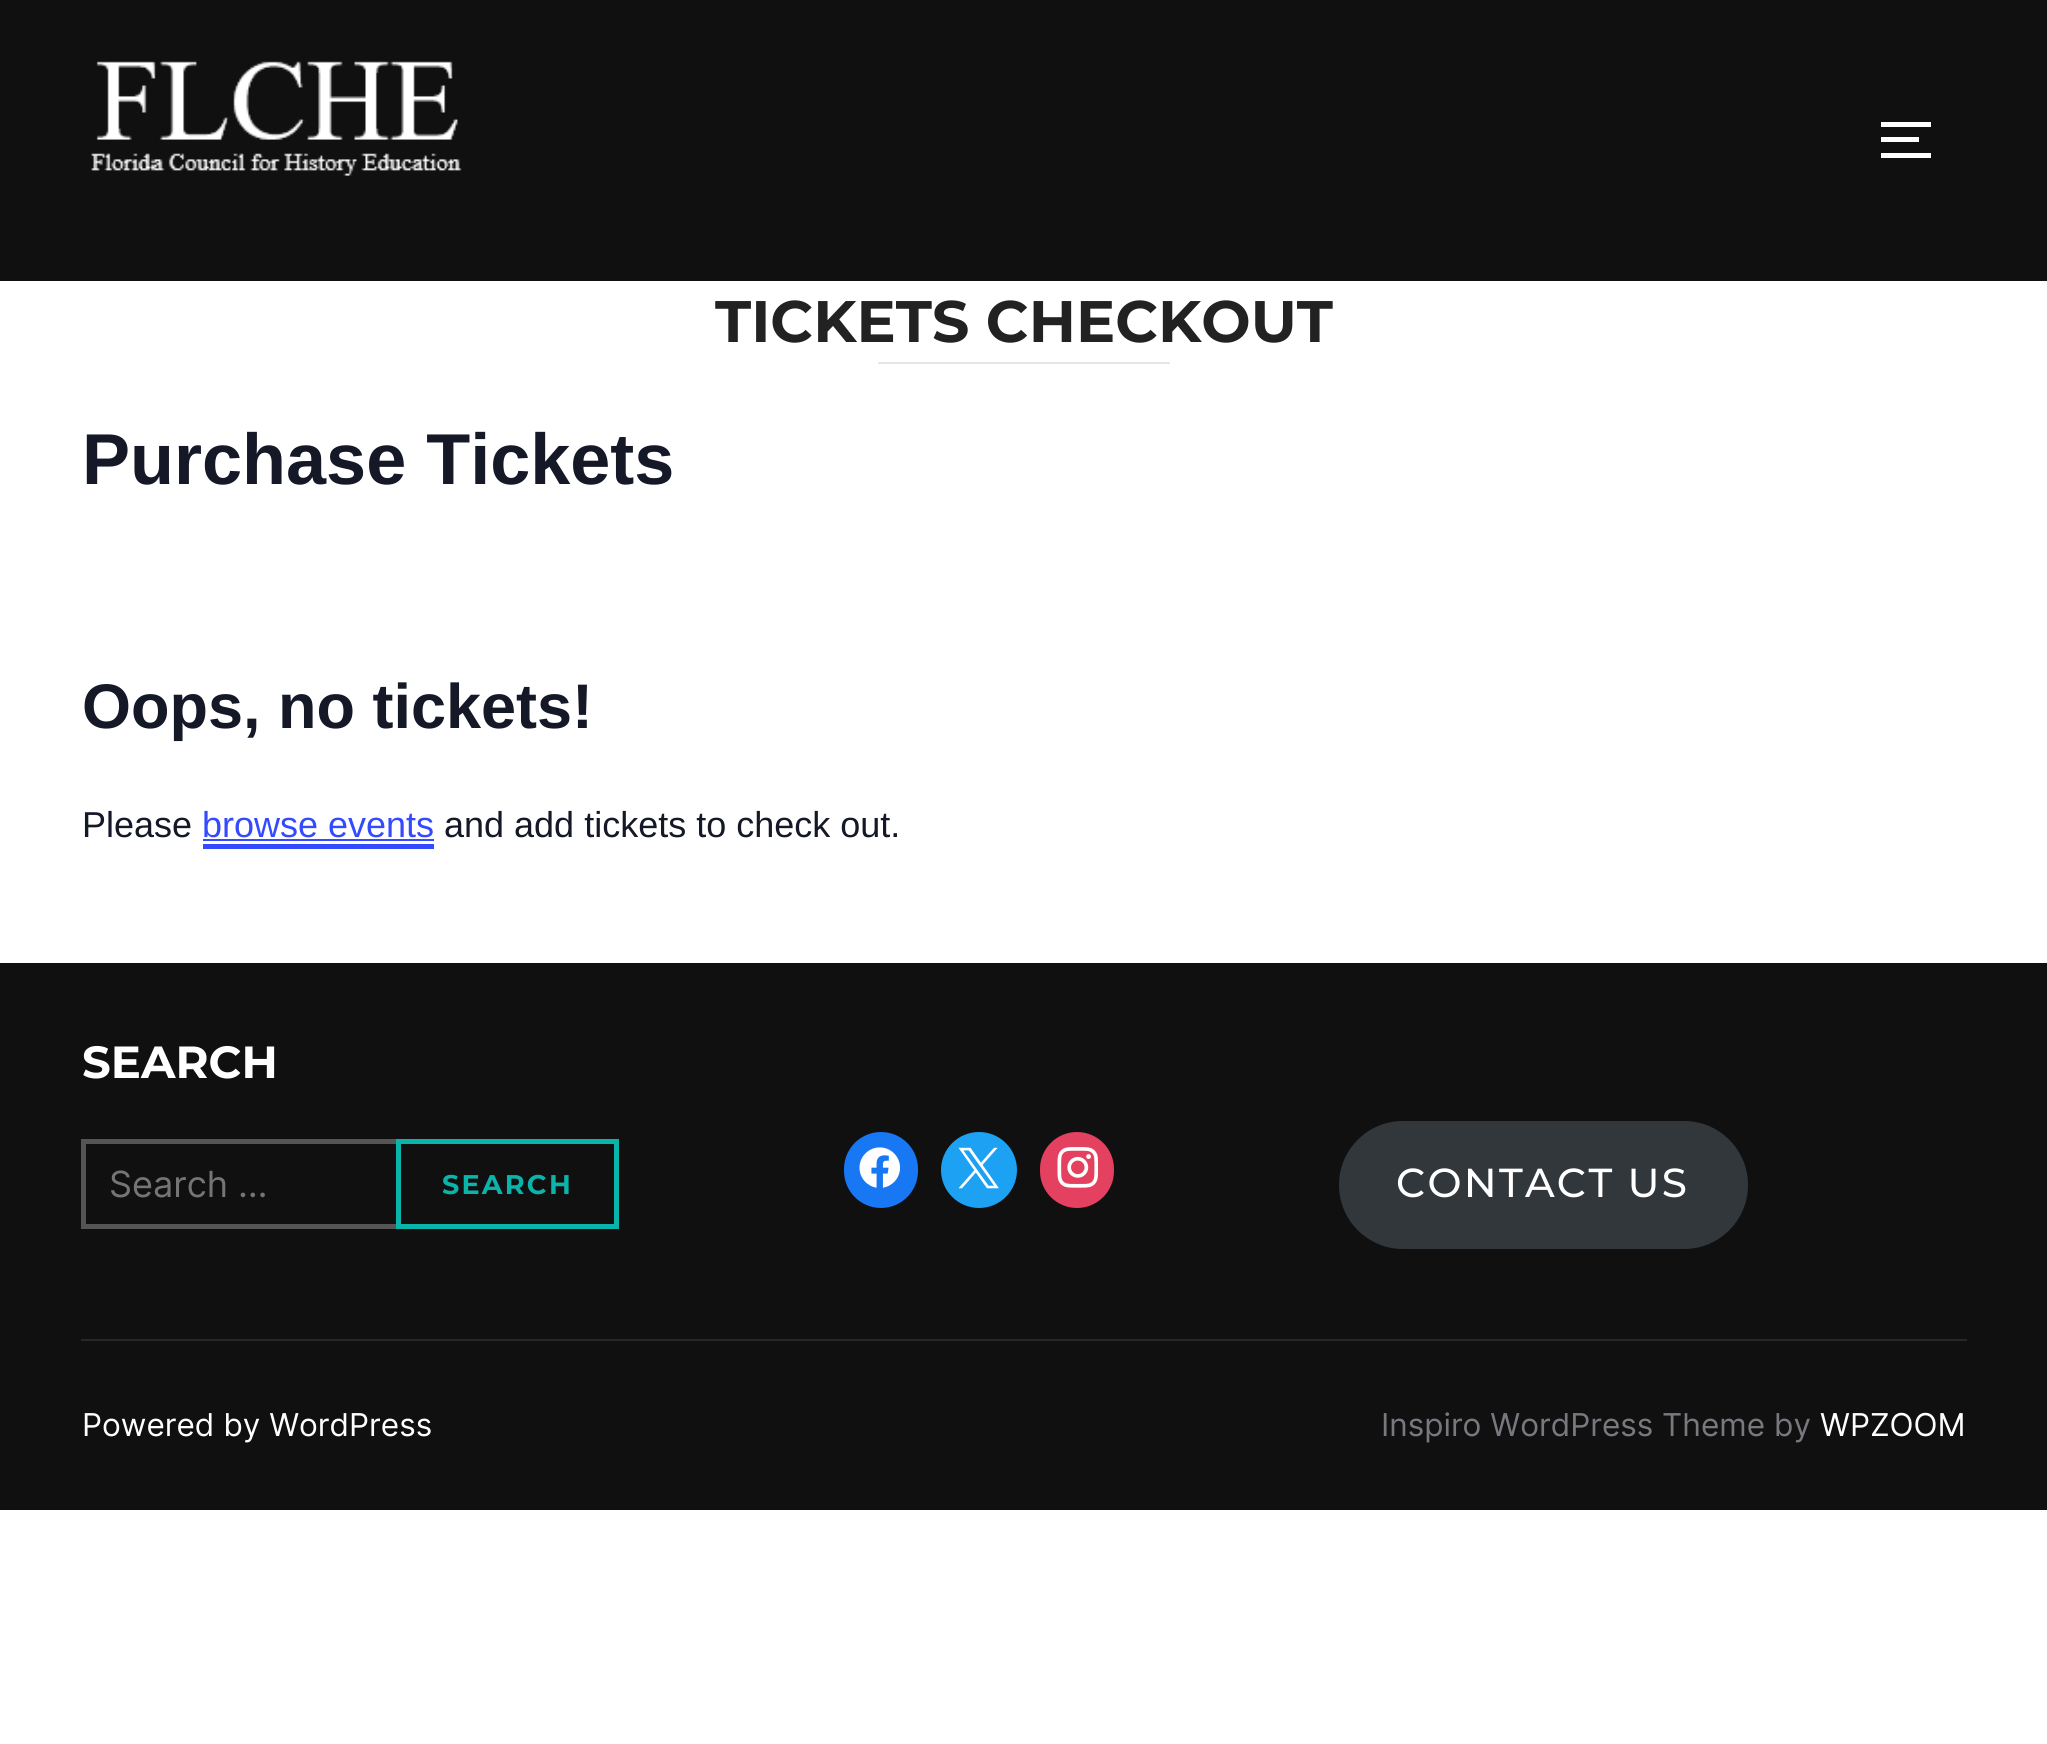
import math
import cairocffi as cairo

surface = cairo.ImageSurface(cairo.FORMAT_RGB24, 2047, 1744)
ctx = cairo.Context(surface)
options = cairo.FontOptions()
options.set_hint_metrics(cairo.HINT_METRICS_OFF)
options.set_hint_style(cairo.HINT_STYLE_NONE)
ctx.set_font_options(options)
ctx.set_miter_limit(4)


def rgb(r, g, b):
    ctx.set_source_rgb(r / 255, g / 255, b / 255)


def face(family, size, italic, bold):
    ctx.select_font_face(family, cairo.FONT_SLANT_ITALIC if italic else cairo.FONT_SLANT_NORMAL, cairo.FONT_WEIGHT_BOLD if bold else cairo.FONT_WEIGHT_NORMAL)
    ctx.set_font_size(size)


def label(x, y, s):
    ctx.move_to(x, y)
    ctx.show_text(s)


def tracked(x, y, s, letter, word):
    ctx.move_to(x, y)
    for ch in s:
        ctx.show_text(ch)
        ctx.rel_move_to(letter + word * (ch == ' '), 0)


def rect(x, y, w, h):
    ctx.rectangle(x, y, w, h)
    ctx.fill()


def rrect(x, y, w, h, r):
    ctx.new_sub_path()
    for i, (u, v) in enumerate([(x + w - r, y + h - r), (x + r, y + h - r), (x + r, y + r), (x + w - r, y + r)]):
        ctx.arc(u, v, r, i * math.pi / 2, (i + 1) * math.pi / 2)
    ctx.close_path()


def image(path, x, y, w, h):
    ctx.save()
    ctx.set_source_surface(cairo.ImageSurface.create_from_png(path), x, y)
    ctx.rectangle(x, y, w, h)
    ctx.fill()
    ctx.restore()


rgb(255, 255, 255)
ctx.paint()
rgb(16, 16, 16)
rect(0, 0, 2047, 281)
image('image0.png', 91, 61, 371, 115)
rgb(255, 255, 255)
rect(1881, 122, 50, 5)
rect(1881, 137, 38, 5)
rect(1881, 153, 50, 5)
face('Montserrat', 58.5, 0, 1)
rgb(34, 34, 34)
label(715, 342, 'TICKETS CHECKOUT')
rgb(230, 230, 230)
rect(878, 362, 292, 2)
face('Liberation Sans', 72, 0, 1)
rgb(20, 24, 39)
label(82, 484, 'Purchase Tickets')
face('Liberation Sans', 63, 0, 1)
label(82, 728, 'Oops, no tickets!')
face('Liberation Sans', 36, 0, 0)
label(82, 837, 'Please')
rgb(51, 74, 255)
label(202, 837, 'browse events')
rect(203, 844, 231, 5)
rect(203, 839, 231, 2)
rgb(20, 24, 39)
label(444, 837, 'and add tickets to check out.')
rgb(16, 16, 16)
rect(0, 963, 2047, 547)
face('Montserrat', 45, 0, 1)
rgb(255, 255, 255)
label(82, 1078, 'SEARCH')
ctx.rectangle(83.5, 1141.5, 533, 85)
rgb(86, 85, 85)
ctx.set_line_width(5)
ctx.stroke()
face('Inter', 36, 0, 0)
rgb(117, 117, 117)
label(109, 1197, 'Search …')
ctx.rectangle(398.5, 1141.5, 218, 85)
rgb(11, 180, 170)
ctx.stroke()
face('Montserrat', 27, 0, 1)
tracked(442, 1194, 'SEARCH', 2.25, 0)
rgb(24, 119, 242)
rrect(844, 1132, 74, 76, 37)
ctx.fill()
image('image1.png', 859, 1147, 42, 41)
rgb(29, 161, 242)
ctx.arc(979, 1170, 38, 0, 2 * math.pi)
ctx.fill()
image('image2.png', 958, 1147, 41, 42)
rgb(228, 64, 95)
rrect(1040, 1132, 74, 76, 37)
ctx.fill()
image('image3.png', 1057, 1147, 42, 41)
rgb(50, 55, 60)
rrect(1339, 1121, 409, 128, 64)
ctx.fill()
face('Montserrat Medium', 40.5, 0, 0)
rgb(255, 255, 255)
tracked(1396, 1197, 'CONTACT US', 2.25, 0)
rgb(40, 40, 40)
rect(81, 1339, 1886, 2)
face('Inter', 31.5, 0, 0)
rgb(255, 255, 255)
label(82, 1436, 'Powered by WordPress')
rgb(120, 120, 127)
label(1381, 1436, 'Inspiro WordPress Theme by')
rgb(255, 255, 255)
label(1820, 1436, 'WPZOOM')
surface.write_to_png('render.png')
